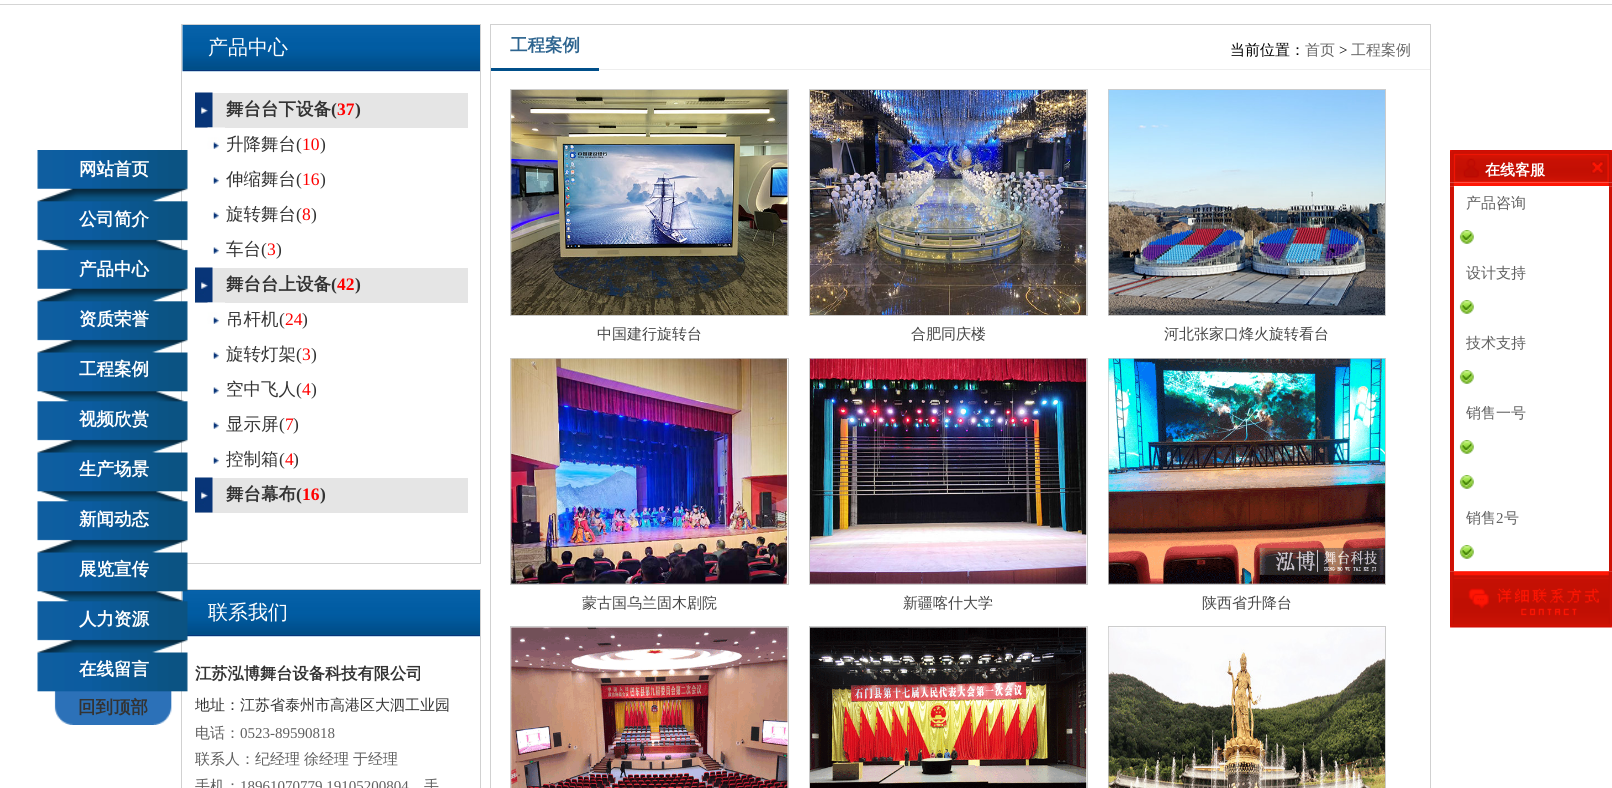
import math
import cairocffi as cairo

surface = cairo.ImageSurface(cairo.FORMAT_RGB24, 1612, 788)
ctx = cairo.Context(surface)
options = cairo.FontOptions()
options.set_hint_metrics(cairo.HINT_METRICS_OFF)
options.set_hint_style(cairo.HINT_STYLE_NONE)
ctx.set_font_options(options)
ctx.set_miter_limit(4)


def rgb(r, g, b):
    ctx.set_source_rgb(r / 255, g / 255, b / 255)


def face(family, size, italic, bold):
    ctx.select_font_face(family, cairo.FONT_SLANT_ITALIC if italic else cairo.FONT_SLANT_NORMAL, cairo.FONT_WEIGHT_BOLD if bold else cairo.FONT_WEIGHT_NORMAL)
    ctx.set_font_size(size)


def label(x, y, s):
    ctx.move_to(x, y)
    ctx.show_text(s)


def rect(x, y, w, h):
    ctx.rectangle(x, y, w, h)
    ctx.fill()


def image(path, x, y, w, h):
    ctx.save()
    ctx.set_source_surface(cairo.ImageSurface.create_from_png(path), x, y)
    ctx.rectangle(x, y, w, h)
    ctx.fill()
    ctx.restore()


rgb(255, 255, 255)
ctx.paint()
rgb(213, 213, 213)
rect(0, 4, 1612, 1)
ctx.rectangle(181.5, 24.5, 299, 539)
rgb(209, 209, 209)
ctx.set_line_width(1)
ctx.stroke()
ctx.rectangle(181.5, 589.5, 299, 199)
ctx.stroke()
image('image1.png', 182, 590, 298, 47)
rgb(8, 53, 120)
rect(183, 635, 297, 1)
image('image0.png', 37, 150, 151, 575)
face('WenQuanYi Zen Hei', 17.5, 0, 1)
rgb(255, 255, 255)
label(79, 175, '网站首页')
label(79, 225, '公司简介')
label(79, 275, '产品中心')
label(79, 325, '资质荣誉')
label(79, 375, '工程案例')
label(79, 425, '视频欣赏')
label(79, 475, '生产场景')
label(79, 525, '新闻动态')
label(79, 575, '展览宣传')
label(79, 625, '人力资源')
label(79, 675, '在线留言')
rgb(51, 51, 51)
label(78, 713, '回到顶部')
image('image1.png', 182, 25, 298, 47)
rgb(8, 53, 120)
rect(183, 70, 297, 1)
face('WenQuanYi Zen Hei Medium', 20, 0, 0)
rgb(255, 255, 255)
label(208, 54, '产品中心')
rgb(229, 229, 229)
rect(195, 93, 273, 35)
image('image2.png', 195, 92, 18, 36)
face('WenQuanYi Zen Hei', 17.5, 0, 1)
rgb(51, 51, 51)
label(226, 115, '舞台台下设备')
face('Liberation Serif', 17.5, 0, 1)
label(331, 115, '(')
rgb(255, 0, 0)
label(337, 115, '37')
rgb(51, 51, 51)
label(355, 115, ')')
image('image3.png', 207, 127, 18, 22)
face('WenQuanYi Zen Hei Medium', 17.5, 0, 0)
label(226, 150, '升降舞台')
face('Liberation Serif', 17.5, 0, 0)
label(296, 150, '(')
rgb(255, 0, 0)
label(302, 150, '10')
rgb(51, 51, 51)
label(320, 150, ')')
image('image4.png', 213, 177, 6, 7)
face('WenQuanYi Zen Hei Medium', 17.5, 0, 0)
label(226, 185, '伸缩舞台')
face('Liberation Serif', 17.5, 0, 0)
label(296, 185, '(')
rgb(255, 0, 0)
label(302, 185, '16')
rgb(51, 51, 51)
label(320, 185, ')')
image('image4.png', 213, 212, 6, 7)
face('WenQuanYi Zen Hei Medium', 17.5, 0, 0)
label(226, 220, '旋转舞台')
face('Liberation Serif', 17.5, 0, 0)
label(296, 220, '(')
rgb(255, 0, 0)
label(302, 220, '8')
rgb(51, 51, 51)
label(311, 220, ')')
image('image4.png', 213, 247, 6, 7)
face('WenQuanYi Zen Hei Medium', 17.5, 0, 0)
label(226, 255, '车台')
face('Liberation Serif', 17.5, 0, 0)
label(261, 255, '(')
rgb(255, 0, 0)
label(267, 255, '3')
rgb(51, 51, 51)
label(276, 255, ')')
rgb(229, 229, 229)
rect(195, 268, 273, 35)
image('image2.png', 195, 267, 18, 36)
face('WenQuanYi Zen Hei', 17.5, 0, 1)
rgb(51, 51, 51)
label(226, 290, '舞台台上设备')
face('Liberation Serif', 17.5, 0, 1)
label(331, 290, '(')
rgb(255, 0, 0)
label(337, 290, '42')
rgb(51, 51, 51)
label(355, 290, ')')
image('image3.png', 207, 302, 18, 22)
face('WenQuanYi Zen Hei Medium', 17.5, 0, 0)
label(226, 325, '吊杆机')
face('Liberation Serif', 17.5, 0, 0)
label(279, 325, '(')
rgb(255, 0, 0)
label(285, 325, '24')
rgb(51, 51, 51)
label(302, 325, ')')
image('image4.png', 213, 352, 6, 7)
face('WenQuanYi Zen Hei Medium', 17.5, 0, 0)
label(226, 360, '旋转灯架')
face('Liberation Serif', 17.5, 0, 0)
label(296, 360, '(')
rgb(255, 0, 0)
label(302, 360, '3')
rgb(51, 51, 51)
label(311, 360, ')')
image('image4.png', 213, 387, 6, 7)
face('WenQuanYi Zen Hei Medium', 17.5, 0, 0)
label(226, 395, '空中飞人')
face('Liberation Serif', 17.5, 0, 0)
label(296, 395, '(')
rgb(255, 0, 0)
label(302, 395, '4')
rgb(51, 51, 51)
label(311, 395, ')')
image('image4.png', 213, 422, 6, 7)
face('WenQuanYi Zen Hei Medium', 17.5, 0, 0)
label(226, 430, '显示屏')
face('Liberation Serif', 17.5, 0, 0)
label(279, 430, '(')
rgb(255, 0, 0)
label(285, 430, '7')
rgb(51, 51, 51)
label(293, 430, ')')
image('image4.png', 213, 457, 6, 7)
face('WenQuanYi Zen Hei Medium', 17.5, 0, 0)
label(226, 465, '控制箱')
face('Liberation Serif', 17.5, 0, 0)
label(279, 465, '(')
rgb(255, 0, 0)
label(285, 465, '4')
rgb(51, 51, 51)
label(293, 465, ')')
rgb(229, 229, 229)
rect(195, 478, 273, 35)
image('image2.png', 195, 477, 18, 36)
face('WenQuanYi Zen Hei', 17.5, 0, 1)
rgb(51, 51, 51)
label(226, 500, '舞台幕布')
face('Liberation Serif', 17.5, 0, 1)
label(296, 500, '(')
rgb(255, 0, 0)
label(302, 500, '16')
rgb(51, 51, 51)
label(320, 500, ')')
face('WenQuanYi Zen Hei Medium', 20, 0, 0)
rgb(255, 255, 255)
label(208, 619, '联系我们')
face('WenQuanYi Zen Hei', 16.25, 0, 1)
rgb(51, 51, 51)
label(195, 679, '江苏泓博舞台设备科技有限公司')
face('WenQuanYi Zen Hei Medium', 15, 0, 0)
label(195, 710, '地址：江苏省泰州市高港区大泗工业园')
rgb(96, 96, 96)
label(195, 738, '电话：')
face('Liberation Serif', 15, 0, 0)
label(240, 738, '0523-89590818')
face('WenQuanYi Zen Hei Medium', 15, 0, 0)
label(195, 764, '联系人：纪经理')
label(304, 764, '徐经理')
label(353, 764, '于经理')
label(195, 791, '手机：')
face('Liberation Serif', 15, 0, 0)
label(240, 791, '18961070779 19105200804')
face('WenQuanYi Zen Hei Medium', 15, 0, 0)
label(424, 791, '手')
ctx.rectangle(490.5, 24.5, 940, 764)
rgb(209, 209, 209)
ctx.stroke()
rgb(238, 238, 238)
rect(599, 69, 831, 1)
rgb(0, 79, 138)
rect(491, 68, 108, 3)
face('WenQuanYi Zen Hei', 17.5, 0, 1)
rgb(45, 100, 143)
label(510, 51, '工程案例')
face('WenQuanYi Zen Hei Medium', 15, 0, 0)
rgb(0, 0, 0)
label(1230, 55, '当前位置：')
rgb(102, 102, 102)
label(1305, 55, '首页')
face('Liberation Serif', 15, 0, 0)
rgb(0, 0, 0)
label(1339, 55, '>')
face('WenQuanYi Zen Hei Medium', 15, 0, 0)
rgb(102, 102, 102)
label(1351, 55, '工程案例')
ctx.rectangle(510.5, 89.5, 278, 226)
rgb(204, 204, 204)
ctx.stroke()
image('image5.png', 511, 90, 277, 225)
rgb(70, 70, 70)
label(597, 339, '中国建行旋转台')
ctx.rectangle(809.5, 89.5, 278, 226)
rgb(204, 204, 204)
ctx.stroke()
image('image6.png', 810, 90, 277, 225)
rgb(70, 70, 70)
label(911, 339, '合肥同庆楼')
ctx.rectangle(1108.5, 89.5, 277, 226)
rgb(204, 204, 204)
ctx.stroke()
image('image7.png', 1108, 90, 277, 225)
rgb(70, 70, 70)
label(1164, 339, '河北张家口烽火旋转看台')
ctx.rectangle(510.5, 358.5, 278, 226)
rgb(204, 204, 204)
ctx.stroke()
image('image8.png', 511, 358, 277, 226)
rgb(70, 70, 70)
label(582, 608, '蒙古国乌兰固木剧院')
ctx.rectangle(809.5, 358.5, 278, 226)
rgb(204, 204, 204)
ctx.stroke()
image('image9.png', 810, 358, 277, 226)
rgb(70, 70, 70)
label(903, 608, '新疆喀什大学')
ctx.rectangle(1108.5, 358.5, 277, 226)
rgb(204, 204, 204)
ctx.stroke()
image('image10.png', 1108, 358, 277, 226)
rgb(70, 70, 70)
label(1202, 608, '陕西省升降台')
ctx.rectangle(510.5, 626.5, 278, 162)
rgb(204, 204, 204)
ctx.stroke()
image('image11.png', 511, 627, 277, 161)
ctx.rectangle(809.5, 626.5, 278, 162)
ctx.stroke()
image('image12.png', 810, 627, 277, 161)
ctx.rectangle(1108.5, 626.5, 277, 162)
ctx.stroke()
image('image13.png', 1108, 627, 277, 161)
image('image14.png', 1450, 150, 162, 33)
face('WenQuanYi Zen Hei', 15, 0, 1)
rgb(255, 255, 255)
label(1485, 175, '在线客服')
image('image15.png', 1591, 161, 13, 13)
image('image16.png', 1450, 182, 162, 5)
image('image17.png', 1450, 186, 162, 386)
rect(1454, 186, 155, 385)
face('WenQuanYi Zen Hei Medium', 15, 0, 0)
rgb(96, 96, 96)
label(1466, 208, '产品咨询')
image('image18.png', 1459, 230, 15, 14)
label(1466, 278, '设计支持')
image('image18.png', 1459, 300, 15, 14)
label(1466, 348, '技术支持')
image('image18.png', 1459, 370, 15, 14)
label(1466, 418, '销售一号')
image('image18.png', 1459, 440, 15, 14)
image('image18.png', 1459, 475, 15, 14)
label(1466, 523, '销售')
face('Liberation Serif', 15, 0, 0)
label(1496, 523, '2')
face('WenQuanYi Zen Hei Medium', 15, 0, 0)
label(1504, 523, '号')
image('image18.png', 1459, 545, 15, 14)
image('image19.png', 1450, 571, 162, 4)
image('image20.png', 1450, 575, 162, 53)
surface.write_to_png('render.png')
